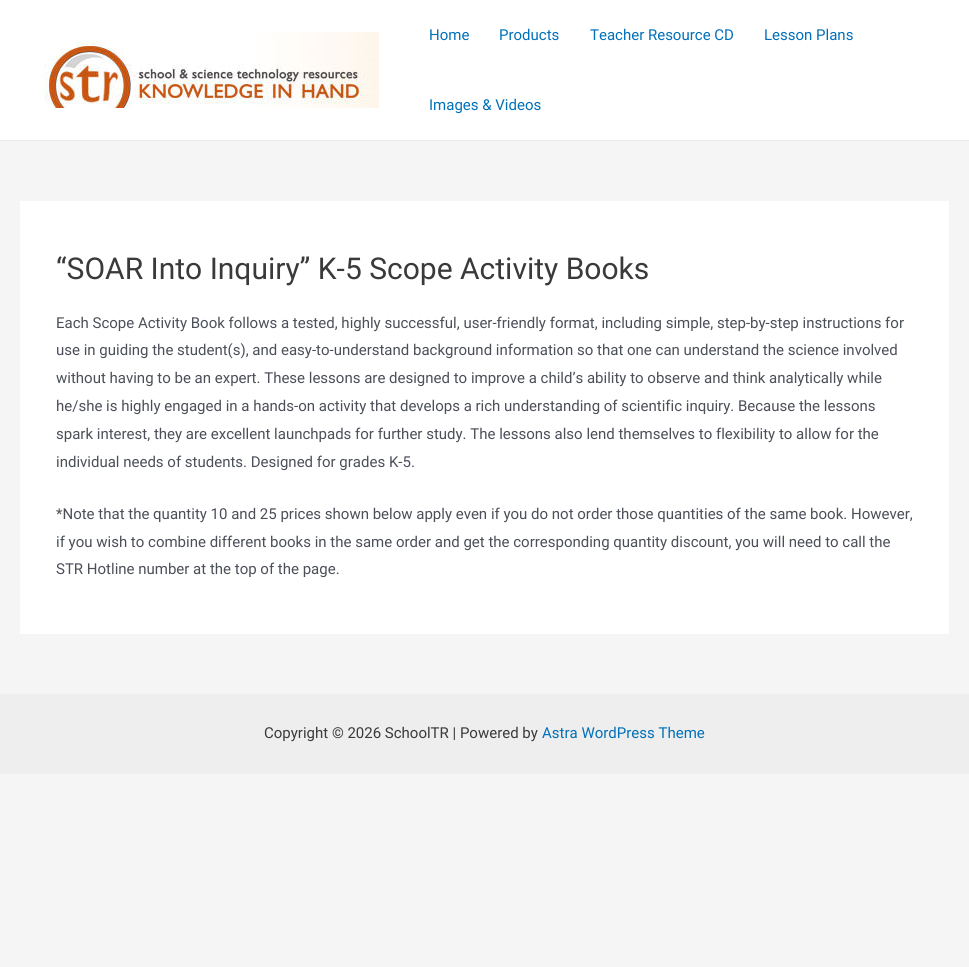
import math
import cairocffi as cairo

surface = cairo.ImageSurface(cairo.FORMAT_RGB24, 969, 967)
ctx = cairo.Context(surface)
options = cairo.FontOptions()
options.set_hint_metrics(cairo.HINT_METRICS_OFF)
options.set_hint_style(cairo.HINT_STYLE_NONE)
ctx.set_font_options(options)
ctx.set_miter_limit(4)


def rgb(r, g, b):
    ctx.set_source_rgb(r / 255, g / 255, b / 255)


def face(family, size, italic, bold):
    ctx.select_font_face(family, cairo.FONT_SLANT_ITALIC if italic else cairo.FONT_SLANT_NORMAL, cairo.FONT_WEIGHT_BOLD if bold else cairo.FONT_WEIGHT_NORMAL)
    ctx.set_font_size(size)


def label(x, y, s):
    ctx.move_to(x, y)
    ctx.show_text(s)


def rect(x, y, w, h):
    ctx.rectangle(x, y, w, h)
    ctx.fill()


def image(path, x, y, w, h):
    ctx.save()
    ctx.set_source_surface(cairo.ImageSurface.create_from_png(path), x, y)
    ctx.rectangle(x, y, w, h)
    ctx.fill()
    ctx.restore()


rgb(245, 245, 245)
ctx.paint()
rgb(255, 255, 255)
rect(0, 0, 969, 140)
rgb(234, 234, 234)
rect(0, 140, 969, 1)
image('image0.png', 44, 32, 335, 76)
face('Roboto', 15, 0, 0)
rgb(1, 112, 185)
label(429, 40, 'Home')
label(499, 40, 'Products')
label(590, 40, 'Teacher Resource CD')
label(764, 40, 'Lesson Plans')
label(429, 110, 'Images & Videos')
rgb(255, 255, 255)
rect(20, 201, 929, 433)
face('Roboto', 30, 0, 0)
rgb(58, 58, 58)
label(56, 279, '“SOAR Into Inquiry” K-5 Scope Activity Books')
face('Roboto', 15, 0, 0)
rgb(75, 79, 88)
label(56, 328, 'Each Scope Activity Book follows a tested, highly successful, user-friendly format, including simple, step-by-step instructions for')
label(56, 355, 'use in guiding the student(s), and easy-to-understand background information so that one can understand the science involved')
label(56, 383, 'without having to be an expert. These lessons are designed to improve a child’s ability to observe and think analytically while')
label(56, 411, 'he/she is highly engaged in a hands-on activity that develops a rich understanding of scientific inquiry. Because the lessons')
label(56, 439, 'spark interest, they are excellent launchpads for further study. The lessons also lend themselves to flexibility to allow for the')
label(56, 467, 'individual needs of students. Designed for grades K-5.')
label(56, 519, '*Note that the quantity 10 and 25 prices shown below apply even if you do not order those quantities of the same book. However,')
label(56, 547, 'if you wish to combine different books in the same order and get the corresponding quantity discount, you will need to call the')
label(56, 574, 'STR Hotline number at the top of the page.')
rgb(238, 238, 238)
rect(0, 694, 969, 80)
rgb(58, 58, 58)
label(264, 738, 'Copyright © 2026 SchoolTR | Powered by')
rgb(1, 112, 185)
label(542, 738, 'Astra WordPress Theme')
surface.write_to_png('render.png')
